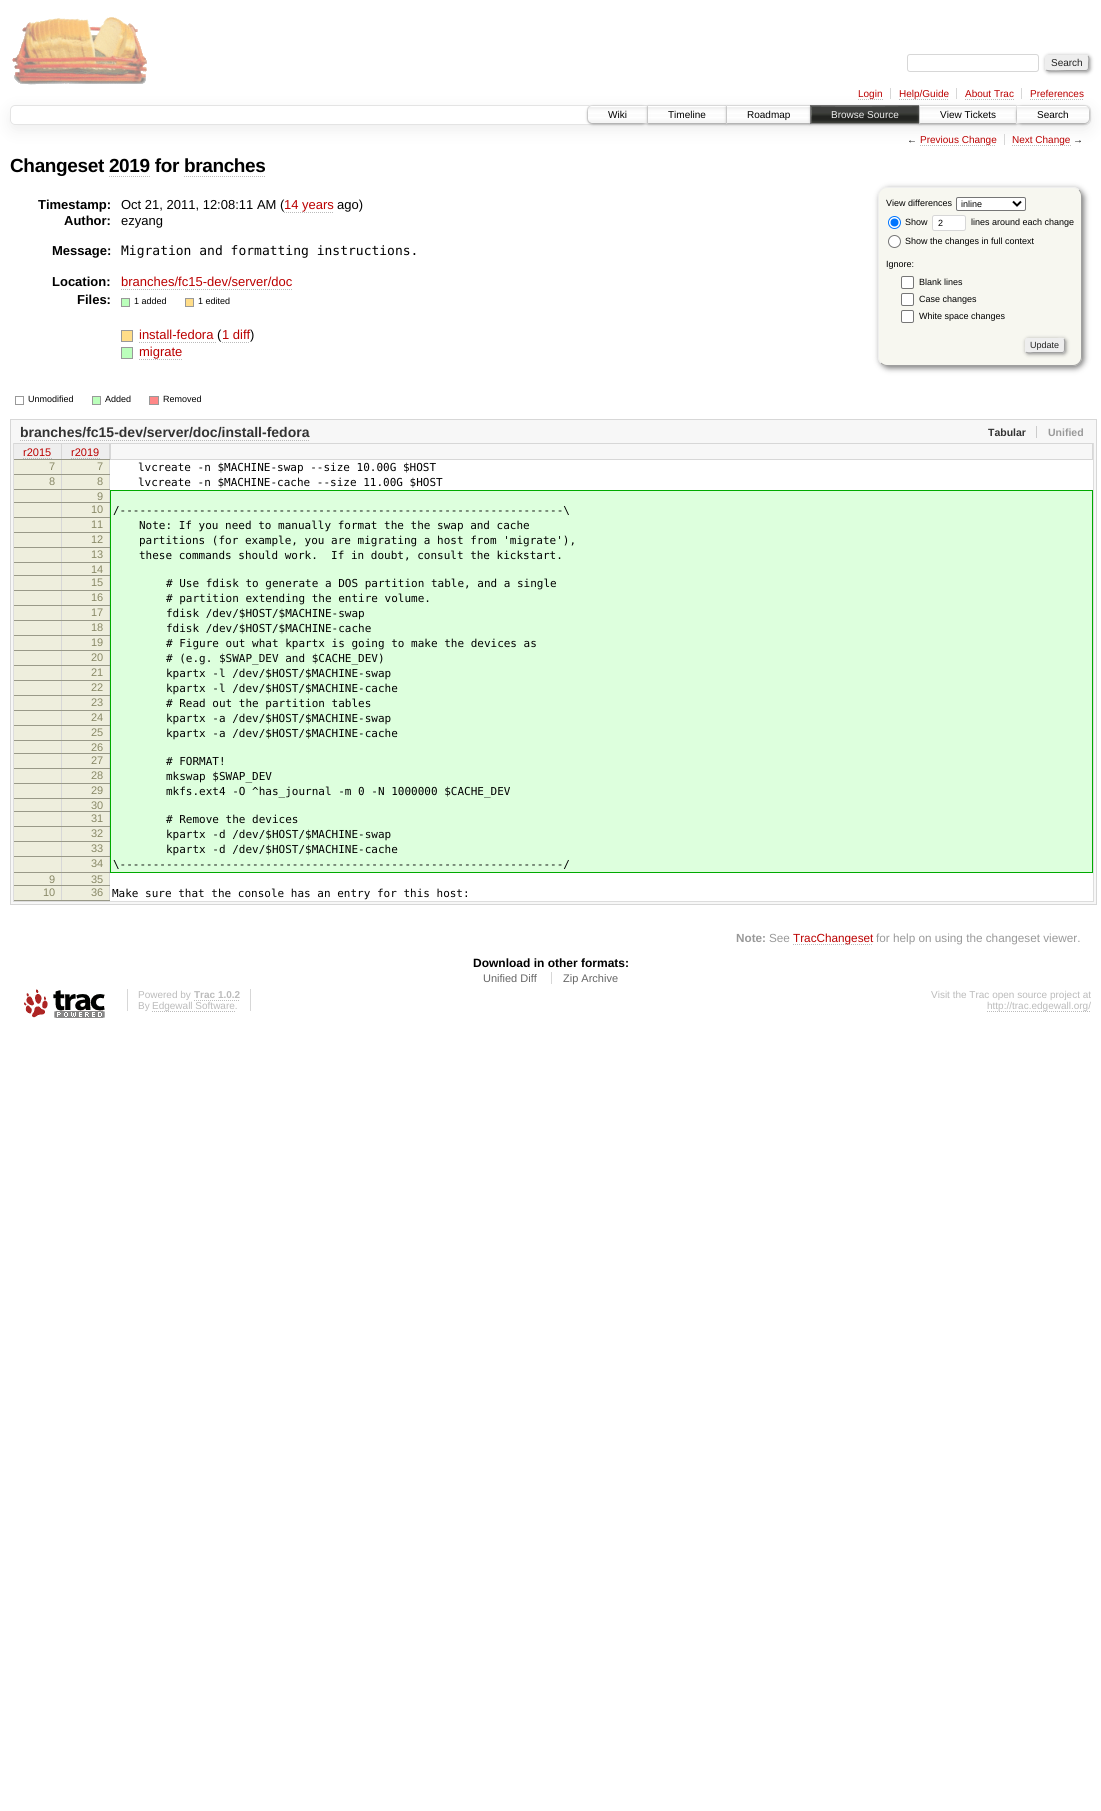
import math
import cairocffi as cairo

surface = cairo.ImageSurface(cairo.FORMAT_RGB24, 1101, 1811)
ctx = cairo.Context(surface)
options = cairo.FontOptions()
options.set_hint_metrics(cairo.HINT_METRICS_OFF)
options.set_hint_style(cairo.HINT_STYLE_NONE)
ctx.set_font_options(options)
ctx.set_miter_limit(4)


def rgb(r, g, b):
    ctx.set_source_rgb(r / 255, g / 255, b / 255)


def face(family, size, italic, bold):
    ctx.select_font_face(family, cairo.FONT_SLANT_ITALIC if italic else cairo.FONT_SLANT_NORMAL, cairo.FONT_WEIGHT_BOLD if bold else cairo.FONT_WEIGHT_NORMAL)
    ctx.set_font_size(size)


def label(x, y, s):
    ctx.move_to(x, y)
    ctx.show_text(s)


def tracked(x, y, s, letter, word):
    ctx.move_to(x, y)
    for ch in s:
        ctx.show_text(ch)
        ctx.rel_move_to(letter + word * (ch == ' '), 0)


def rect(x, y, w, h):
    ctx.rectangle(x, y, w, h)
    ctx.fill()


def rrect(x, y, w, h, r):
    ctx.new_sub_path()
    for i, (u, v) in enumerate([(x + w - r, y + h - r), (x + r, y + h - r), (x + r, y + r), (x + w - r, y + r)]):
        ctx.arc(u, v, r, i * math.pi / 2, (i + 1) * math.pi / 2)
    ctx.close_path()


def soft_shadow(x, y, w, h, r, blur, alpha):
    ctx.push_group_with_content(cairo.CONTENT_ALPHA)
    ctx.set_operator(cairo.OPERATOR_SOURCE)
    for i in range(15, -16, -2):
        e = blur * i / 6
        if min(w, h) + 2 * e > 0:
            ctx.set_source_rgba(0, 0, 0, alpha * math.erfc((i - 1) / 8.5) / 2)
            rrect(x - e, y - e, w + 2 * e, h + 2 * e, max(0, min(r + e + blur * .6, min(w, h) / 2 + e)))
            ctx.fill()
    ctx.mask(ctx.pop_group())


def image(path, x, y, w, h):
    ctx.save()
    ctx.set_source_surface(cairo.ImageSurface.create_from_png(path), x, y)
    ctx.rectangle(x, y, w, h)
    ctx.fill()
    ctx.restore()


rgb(255, 255, 255)
ctx.paint()
image('image0.png', 12, 17, 135, 68)
rrect(907.5, 54.5, 131, 17, 2.5)
rgb(215, 215, 215)
ctx.set_line_width(1)
ctx.stroke()
rgb(136, 136, 136)
soft_shadow(1046, 56, 44, 16, 3, 2, 1)
rgb(238, 238, 238)
rrect(1045, 55, 44, 16, 3)
ctx.fill()
ctx.new_path()
ctx.move_to(1088, 56)
ctx.curve_to(1089.5, 58, 1088.5, 61, 1088.5, 63)
ctx.curve_to(1088.5, 71.5, 1089, 70.5, 1079.5, 70.5)
ctx.line_to(1067, 70.5)
ctx.curve_to(1064, 70.5, 1048, 71.5, 1046, 70)
rgb(159, 159, 159)
ctx.stroke()
ctx.new_path()
ctx.move_to(1046, 70)
ctx.curve_to(1044.5, 68, 1045.5, 65, 1045.5, 63)
ctx.curve_to(1045.5, 54.5, 1045, 55.5, 1054.5, 55.5)
ctx.line_to(1067, 55.5)
ctx.curve_to(1070, 55.5, 1086, 54.5, 1088, 56)
rgb(238, 238, 238)
ctx.stroke()
face('Liberation Sans', 10, 0, 0)
rgb(34, 34, 34)
label(1051, 66, 'Search')
ctx.save()
ctx.set_fill_rule(cairo.FILL_RULE_EVEN_ODD)
ctx.new_path()
ctx.move_to(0, 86)
ctx.line_to(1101, 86)
ctx.line_to(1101, 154)
ctx.line_to(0, 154)
ctx.close_path()
ctx.move_to(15, 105)
ctx.line_to(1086, 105)
ctx.curve_to(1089, 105, 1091, 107, 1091, 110)
ctx.line_to(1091, 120)
ctx.curve_to(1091, 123, 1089, 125, 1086, 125)
ctx.line_to(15, 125)
ctx.curve_to(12, 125, 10, 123, 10, 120)
ctx.line_to(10, 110)
ctx.curve_to(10, 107, 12, 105, 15, 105)
ctx.close_path()
ctx.clip()
rgb(238, 238, 238)
soft_shadow(10, 110, 1081, 20, 5, 7.5, 1)
ctx.restore()
rgb(215, 215, 215)
rect(890, 88, 1, 11)
ctx.new_path()
ctx.move_to(858, 99.5)
ctx.line_to(883, 99.5)
rgb(187, 187, 187)
ctx.set_dash([1, 1])
ctx.stroke()
rgb(187, 0, 0)
label(858, 97, 'Login')
rgb(215, 215, 215)
rect(956, 88, 1, 11)
ctx.new_path()
ctx.move_to(899, 99.5)
ctx.line_to(949, 99.5)
rgb(187, 187, 187)
ctx.stroke()
rgb(187, 0, 0)
label(899, 97, 'Help/Guide')
rgb(215, 215, 215)
rect(1021, 88, 1, 11)
rgb(187, 0, 0)
label(965, 97, 'About Trac')
ctx.new_path()
ctx.move_to(965, 99.5)
ctx.line_to(1014, 99.5)
rgb(187, 187, 187)
ctx.stroke()
rgb(187, 0, 0)
label(1030, 97, 'Preferences')
ctx.new_path()
ctx.move_to(1030, 99.5)
ctx.line_to(1084, 99.5)
rgb(187, 187, 187)
ctx.stroke()
rrect(10.5, 105.5, 1080, 19, 4.5)
rgb(228, 228, 228)
ctx.set_dash([])
ctx.stroke()
rgb(255, 255, 255)
ctx.new_path()
ctx.move_to(592, 105)
ctx.line_to(648, 105)
ctx.line_to(648, 124)
ctx.line_to(592, 124)
ctx.curve_to(589, 124, 587, 122, 587, 119)
ctx.line_to(587, 110)
ctx.curve_to(587, 107, 589, 105, 592, 105)
ctx.close_path()
ctx.fill()
image('image1.png', 587, 107, 60, 17)
ctx.new_path()
ctx.move_to(592, 105.5)
ctx.line_to(647.5, 105.5)
ctx.line_to(647.5, 123.5)
ctx.line_to(592, 123.5)
ctx.curve_to(589.5, 123.5, 587.5, 121.5, 587.5, 119)
ctx.line_to(587.5, 110)
ctx.curve_to(587.5, 107.5, 589.5, 105.5, 592, 105.5)
ctx.close_path()
rgb(228, 228, 228)
ctx.stroke()
ctx.save()
ctx.set_fill_rule(cairo.FILL_RULE_EVEN_ODD)
ctx.new_path()
ctx.move_to(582, 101)
ctx.line_to(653, 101)
ctx.line_to(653, 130)
ctx.line_to(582, 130)
ctx.close_path()
ctx.move_to(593, 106)
ctx.line_to(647, 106)
ctx.line_to(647, 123)
ctx.line_to(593, 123)
ctx.curve_to(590, 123, 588, 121, 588, 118)
ctx.line_to(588, 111)
ctx.curve_to(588, 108, 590, 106, 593, 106)
ctx.close_path()
ctx.clip()
rgb(153, 153, 153)
soft_shadow(588, 107, 59, 17, 5, 1.5, 1)
ctx.restore()
rgb(0, 0, 0)
label(608, 118, 'Wiki')
rgb(255, 255, 255)
rect(648, 108, 2, 15)
image('image2.png', 648, 107, 78, 16)
ctx.rectangle(647.5, 105.5, 79, 18)
rgb(228, 228, 228)
ctx.stroke()
ctx.save()
ctx.set_fill_rule(cairo.FILL_RULE_EVEN_ODD)
ctx.new_path()
ctx.move_to(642, 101)
ctx.line_to(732, 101)
ctx.line_to(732, 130)
ctx.line_to(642, 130)
ctx.close_path()
ctx.move_to(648, 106)
ctx.line_to(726, 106)
ctx.line_to(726, 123)
ctx.line_to(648, 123)
ctx.close_path()
ctx.clip()
rgb(153, 153, 153)
soft_shadow(648, 107, 78, 17, 0, 1.5, 1)
ctx.restore()
rgb(0, 0, 0)
label(668, 118, 'Timeline')
rgb(255, 255, 255)
rect(727, 106, 2, 17)
image('image3.png', 727, 107, 83, 16)
ctx.rectangle(726.5, 105.5, 84, 18)
rgb(228, 228, 228)
ctx.stroke()
ctx.save()
ctx.set_fill_rule(cairo.FILL_RULE_EVEN_ODD)
ctx.new_path()
ctx.move_to(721, 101)
ctx.line_to(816, 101)
ctx.line_to(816, 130)
ctx.line_to(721, 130)
ctx.close_path()
ctx.move_to(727, 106)
ctx.line_to(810, 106)
ctx.line_to(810, 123)
ctx.line_to(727, 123)
ctx.close_path()
ctx.clip()
rgb(153, 153, 153)
soft_shadow(727, 107, 83, 17, 0, 1.5, 1)
ctx.restore()
rgb(0, 0, 0)
label(747, 118, 'Roadmap')
ctx.rectangle(810.5, 105.5, 109, 18)
rgb(102, 102, 102)
ctx.stroke()
rgb(153, 153, 153)
soft_shadow(811, 107, 108, 17, 0, 1.5, 1)
rgb(0, 0, 0)
rect(811, 106, 108, 17)
image('image4.png', 811, 106, 108, 17)
rgb(238, 238, 238)
label(831, 118, 'Browse Source')
rgb(255, 255, 255)
rect(920, 106, 2, 17)
image('image5.png', 920, 107, 96, 16)
ctx.rectangle(919.5, 105.5, 97, 18)
rgb(228, 228, 228)
ctx.stroke()
ctx.save()
ctx.set_fill_rule(cairo.FILL_RULE_EVEN_ODD)
ctx.new_path()
ctx.move_to(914, 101)
ctx.line_to(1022, 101)
ctx.line_to(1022, 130)
ctx.line_to(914, 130)
ctx.close_path()
ctx.move_to(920, 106)
ctx.line_to(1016, 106)
ctx.line_to(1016, 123)
ctx.line_to(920, 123)
ctx.close_path()
ctx.clip()
rgb(153, 153, 153)
soft_shadow(920, 107, 96, 17, 0, 1.5, 1)
ctx.restore()
rgb(0, 0, 0)
label(940, 118, 'View Tickets')
rgb(255, 255, 255)
ctx.new_path()
ctx.move_to(1016, 105)
ctx.line_to(1085, 105)
ctx.curve_to(1088, 105, 1090, 107, 1090, 110)
ctx.line_to(1090, 119)
ctx.curve_to(1090, 122, 1088, 124, 1085, 124)
ctx.line_to(1016, 124)
ctx.close_path()
ctx.fill()
image('image6.png', 1017, 107, 73, 17)
ctx.new_path()
ctx.move_to(1016.5, 105.5)
ctx.line_to(1085, 105.5)
ctx.curve_to(1087.5, 105.5, 1089.5, 107.5, 1089.5, 110)
ctx.line_to(1089.5, 119)
ctx.curve_to(1089.5, 121.5, 1087.5, 123.5, 1085, 123.5)
ctx.line_to(1016.5, 123.5)
ctx.close_path()
rgb(228, 228, 228)
ctx.stroke()
ctx.save()
ctx.set_fill_rule(cairo.FILL_RULE_EVEN_ODD)
ctx.new_path()
ctx.move_to(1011, 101)
ctx.line_to(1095, 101)
ctx.line_to(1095, 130)
ctx.line_to(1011, 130)
ctx.close_path()
ctx.move_to(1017, 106)
ctx.line_to(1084, 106)
ctx.curve_to(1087, 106, 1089, 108, 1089, 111)
ctx.line_to(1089, 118)
ctx.curve_to(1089, 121, 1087, 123, 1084, 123)
ctx.line_to(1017, 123)
ctx.close_path()
ctx.clip()
rgb(153, 153, 153)
soft_shadow(1017, 107, 72, 17, 5, 1.5, 1)
ctx.restore()
rgb(0, 0, 0)
label(1037, 118, 'Search')
rgb(215, 215, 215)
rect(1004, 134, 1, 11)
rgb(0, 0, 0)
label(907, 143, '←')
ctx.new_path()
ctx.move_to(920, 145.5)
ctx.line_to(996, 145.5)
rgb(187, 187, 187)
ctx.set_dash([1, 1])
ctx.stroke()
rgb(187, 0, 0)
label(920, 143, 'Previous Change')
ctx.new_path()
ctx.move_to(1012, 145.5)
ctx.line_to(1071, 145.5)
rgb(187, 187, 187)
ctx.stroke()
rgb(187, 0, 0)
label(1012, 143, 'Next Change')
rgb(0, 0, 0)
label(1073, 143, '→')
face('Liberation Sans', 19, 0, 1)
tracked(10, 172, 'Changeset 2019 for branches', -0.35, 0)
ctx.new_path()
ctx.move_to(109, 176.5)
ctx.line_to(150, 176.5)
rgb(187, 187, 187)
ctx.stroke()
ctx.new_path()
ctx.move_to(184, 176.5)
ctx.line_to(266, 176.5)
ctx.stroke()
face('Liberation Sans', 13, 0, 1)
rgb(0, 0, 0)
label(38, 209, 'Timestamp:')
face('Liberation Sans', 13, 0, 0)
label(121, 209, 'Oct 21, 2011, 12:08:11 AM (')
rgb(187, 0, 0)
label(284, 209, '14 years')
ctx.new_path()
ctx.move_to(284, 212.5)
ctx.line_to(334, 212.5)
rgb(187, 187, 187)
ctx.stroke()
rgb(0, 0, 0)
label(337, 209, 'ago)')
face('Liberation Sans', 13, 0, 1)
label(64, 225, 'Author:')
face('Liberation Sans', 13, 0, 0)
label(121, 225, 'ezyang')
face('Liberation Sans', 13, 0, 1)
label(52, 255, 'Message:')
face('DejaVu Sans Mono', 13, 0, 0)
label(121, 255, 'Migration and formatting instructions.')
face('Liberation Sans', 13, 0, 1)
label(52, 286, 'Location:')
face('Liberation Sans', 13, 0, 0)
rgb(187, 0, 0)
label(121, 286, 'branches/fc15-dev/server/doc')
ctx.new_path()
ctx.move_to(121, 289.5)
ctx.line_to(292, 289.5)
rgb(187, 187, 187)
ctx.stroke()
face('Liberation Sans', 13, 0, 1)
rgb(0, 0, 0)
label(77, 304, 'Files:')
rgb(187, 255, 187)
ctx.rectangle(121.5, 298.5, 8, 8)
ctx.fill_preserve()
rgb(153, 153, 153)
ctx.set_dash([])
ctx.stroke()
face('Liberation Sans', 9, 0, 0)
rgb(0, 0, 0)
label(134, 304, '1 added')
rgb(255, 221, 136)
ctx.rectangle(185.5, 298.5, 8, 8)
ctx.fill_preserve()
rgb(153, 153, 153)
ctx.stroke()
rgb(0, 0, 0)
label(198, 304, '1 edited')
rgb(255, 221, 136)
ctx.rectangle(121.5, 330.5, 11, 11)
ctx.fill_preserve()
rgb(153, 153, 153)
ctx.stroke()
face('Liberation Sans', 13, 0, 0)
rgb(187, 0, 0)
label(139, 339, 'install-fedora')
ctx.new_path()
ctx.move_to(139, 342.5)
ctx.line_to(217, 342.5)
rgb(187, 187, 187)
ctx.set_dash([1, 1])
ctx.stroke()
rgb(0, 0, 0)
label(217, 339, '(')
rgb(187, 0, 0)
label(222, 339, '1 diff')
ctx.new_path()
ctx.move_to(222, 342.5)
ctx.line_to(250, 342.5)
rgb(187, 187, 187)
ctx.stroke()
rgb(0, 0, 0)
label(250, 339, ')')
rgb(187, 255, 187)
ctx.rectangle(121.5, 347.5, 11, 11)
ctx.fill_preserve()
rgb(153, 153, 153)
ctx.set_dash([])
ctx.stroke()
rgb(187, 0, 0)
label(139, 356, 'migrate')
ctx.new_path()
ctx.move_to(139, 359.5)
ctx.line_to(183, 359.5)
rgb(187, 187, 187)
ctx.set_dash([1, 1])
ctx.stroke()
rgb(119, 119, 119)
soft_shadow(880, 189, 204, 179, 9, 3, 1)
rgb(247, 247, 240)
rrect(878, 187, 204, 179, 9)
ctx.fill()
ctx.new_path()
ctx.move_to(1079, 190)
ctx.curve_to(1080.5, 191.5, 1081.5, 193.5, 1081.5, 196)
ctx.line_to(1081.5, 357)
ctx.curve_to(1081.5, 359.5, 1080.5, 361.5, 1079, 363)
ctx.curve_to(1077.5, 364.5, 1075.5, 365.5, 1073, 365.5)
ctx.line_to(887, 365.5)
ctx.curve_to(884.5, 365.5, 882.5, 364.5, 881, 363)
rgb(159, 159, 159)
ctx.set_dash([])
ctx.stroke()
ctx.new_path()
ctx.move_to(881, 363)
ctx.curve_to(879.5, 361.5, 878.5, 359.5, 878.5, 357)
ctx.line_to(878.5, 196)
ctx.curve_to(878.5, 193.5, 879.5, 191.5, 881, 190)
ctx.curve_to(882.5, 188.5, 884.5, 187.5, 887, 187.5)
ctx.line_to(1073, 187.5)
ctx.curve_to(1075.5, 187.5, 1077.5, 188.5, 1079, 190)
rgb(238, 238, 238)
ctx.stroke()
face('Liberation Sans', 9, 0, 0)
rgb(0, 0, 0)
label(886, 206, 'View differences')
rgb(255, 255, 255)
rrect(956.5, 197.5, 69, 13, 1.5)
ctx.fill_preserve()
rgb(118, 118, 118)
ctx.stroke()
ctx.new_path()
ctx.move_to(1013, 201.5)
ctx.line_to(1017, 205.5)
ctx.line_to(1021, 201.5)
rgb(0, 0, 0)
ctx.set_line_width(2)
ctx.stroke()
label(961, 207, 'inline')
rgb(255, 255, 255)
ctx.new_path()
ctx.arc(894.5, 222.5, 6, 0, 2 * math.pi)
ctx.fill_preserve()
rgb(0, 117, 255)
ctx.set_line_width(1)
ctx.stroke()
ctx.arc(894.5, 222.5, 4, 0, 2 * math.pi)
ctx.fill()
rgb(0, 0, 0)
label(905, 225, 'Show')
rgb(255, 255, 255)
rrect(932.5, 215.5, 33, 15, 2)
ctx.fill_preserve()
rgb(215, 215, 215)
ctx.stroke()
rgb(0, 0, 0)
label(938, 226, '2')
label(971, 225, 'lines around each change')
rgb(255, 255, 255)
ctx.new_path()
ctx.arc(894.5, 241.5, 6, 0, 2 * math.pi)
ctx.fill_preserve()
rgb(118, 118, 118)
ctx.stroke()
rgb(0, 0, 0)
label(905, 244, 'Show the changes in full context')
label(886, 267, 'Ignore:')
rgb(255, 255, 255)
rrect(901.5, 276.5, 12, 12, 1.5)
ctx.fill_preserve()
rgb(118, 118, 118)
ctx.stroke()
rgb(0, 0, 0)
label(919, 285, 'Blank lines')
rgb(255, 255, 255)
rrect(901.5, 293.5, 12, 12, 1.5)
ctx.fill_preserve()
rgb(118, 118, 118)
ctx.stroke()
rgb(0, 0, 0)
label(919, 302, 'Case changes')
rgb(255, 255, 255)
rrect(901.5, 310.5, 12, 12, 1.5)
ctx.fill_preserve()
rgb(118, 118, 118)
ctx.stroke()
rgb(0, 0, 0)
label(919, 319, 'White space changes')
rgb(136, 136, 136)
soft_shadow(1026, 339, 40, 15, 2.5, 2, 1)
rgb(238, 238, 238)
rrect(1025, 338, 40, 15, 2.5)
ctx.fill()
ctx.new_path()
ctx.move_to(1064, 339)
ctx.curve_to(1065, 340.5, 1064.5, 344, 1064.5, 345.5)
ctx.curve_to(1064.5, 353.5, 1065, 352.5, 1056.5, 352.5)
ctx.line_to(1033.5, 352.5)
ctx.curve_to(1033, 352.5, 1027.5, 353.5, 1026, 352)
rgb(159, 159, 159)
ctx.stroke()
ctx.new_path()
ctx.move_to(1026, 352)
ctx.curve_to(1025, 350.5, 1025.5, 347, 1025.5, 345.5)
ctx.curve_to(1025.5, 337.5, 1025, 338.5, 1033.5, 338.5)
ctx.line_to(1056.5, 338.5)
ctx.curve_to(1057, 338.5, 1062.5, 337.5, 1064, 339)
rgb(238, 238, 238)
ctx.stroke()
rgb(34, 34, 34)
label(1030, 348, 'Update')
ctx.rectangle(15.5, 396.5, 8, 8)
rgb(153, 153, 153)
ctx.stroke()
rgb(0, 0, 0)
label(28, 402, 'Unmodified')
rgb(187, 255, 187)
ctx.rectangle(92.5, 396.5, 8, 8)
ctx.fill_preserve()
rgb(153, 153, 153)
ctx.stroke()
rgb(0, 0, 0)
label(105, 402, 'Added')
rgb(255, 136, 136)
ctx.rectangle(149.5, 396.5, 9, 8)
ctx.fill_preserve()
rgb(153, 153, 153)
ctx.stroke()
rgb(0, 0, 0)
label(163, 402, 'Removed')
rgb(247, 247, 247)
ctx.rectangle(10.5, 419.5, 1086, 485)
ctx.fill_preserve()
rgb(215, 215, 215)
ctx.stroke()
face('Liberation Sans', 14, 0, 1)
rgb(51, 51, 51)
label(20, 437, 'branches/fc15-dev/server/doc/install-fedora')
ctx.new_path()
ctx.move_to(20, 440.5)
ctx.line_to(309, 440.5)
rgb(187, 187, 187)
ctx.set_dash([1, 1])
ctx.stroke()
face('Liberation Sans', 10.5, 0, 1)
rgb(51, 51, 51)
label(988, 436, 'Tabular')
rgb(153, 153, 153)
label(1048, 436, 'Unified')
rgb(204, 204, 204)
rect(1036, 426, 1, 12)
rgb(221, 221, 221)
rect(1093, 443, 1, 459)
rect(13, 901, 1081, 1)
rect(13, 443, 1, 459)
rgb(238, 238, 238)
rect(14, 444, 47, 15)
rgb(215, 215, 215)
rect(14, 443, 96, 1)
rect(61, 443, 1, 458)
rgb(153, 153, 136)
rect(14, 459, 48, 1)
face('Liberation Sans', 11, 0, 0)
rgb(187, 0, 0)
label(23, 456, 'r2015')
ctx.new_path()
ctx.move_to(23, 458.5)
ctx.line_to(52, 458.5)
rgb(187, 187, 187)
ctx.stroke()
rgb(238, 238, 238)
rect(62, 444, 47, 15)
rgb(215, 215, 215)
rect(109, 443, 1, 458)
rgb(153, 153, 136)
rect(62, 459, 48, 1)
rgb(187, 0, 0)
label(71, 456, 'r2019')
ctx.new_path()
ctx.move_to(71, 458.5)
ctx.line_to(100, 458.5)
rgb(187, 187, 187)
ctx.stroke()
ctx.rectangle(110.5, 443.5, 982, 16)
rgb(215, 215, 215)
ctx.set_dash([])
ctx.stroke()
rgb(238, 238, 221)
rect(14, 460, 47, 14)
rgb(153, 153, 136)
rect(14, 474, 96, 1)
rgb(136, 136, 102)
label(49, 470, '7')
rgb(238, 238, 221)
rect(62, 460, 47, 14)
rgb(136, 136, 102)
label(97, 470, '7')
rgb(255, 255, 255)
rect(110, 460, 983, 30)
face('DejaVu Sans Mono', 11, 0, 0)
rgb(0, 0, 0)
label(138, 471, 'lvcreate -n $MACHINE-swap --size 10.00G $HOST')
rgb(238, 238, 221)
rect(14, 475, 47, 14)
rgb(153, 153, 136)
rect(14, 489, 96, 1)
face('Liberation Sans', 11, 0, 0)
rgb(136, 136, 102)
label(49, 485, '8')
rgb(238, 238, 221)
rect(62, 475, 47, 14)
rgb(136, 136, 102)
label(97, 485, '8')
face('DejaVu Sans Mono', 11, 0, 0)
rgb(0, 0, 0)
label(138, 486, 'lvcreate -n $MACHINE-cache --size 11.00G $HOST')
rgb(238, 238, 221)
rect(14, 490, 47, 12)
rgb(153, 153, 136)
rect(14, 502, 96, 1)
rgb(221, 255, 221)
rect(111, 491, 981, 381)
rgb(0, 170, 0)
rect(110, 490, 983, 1)
rect(1092, 490, 1, 383)
rect(110, 490, 1, 367)
rgb(238, 238, 221)
rect(62, 490, 47, 12)
face('Liberation Sans', 11, 0, 0)
rgb(136, 136, 102)
label(97, 500, '9')
rgb(238, 238, 221)
rect(14, 503, 47, 14)
rgb(153, 153, 136)
rect(14, 517, 96, 1)
rgb(238, 238, 221)
rect(62, 503, 47, 14)
rgb(136, 136, 102)
label(91, 513, '10')
face('DejaVu Sans Mono', 11, 0, 0)
rgb(0, 0, 0)
label(113, 514, '/-------------------------------------------------------------------\\')
rgb(238, 238, 221)
rect(14, 518, 47, 14)
rgb(153, 153, 136)
rect(14, 532, 96, 1)
rgb(238, 238, 221)
rect(62, 518, 47, 14)
face('Liberation Sans', 11, 0, 0)
rgb(136, 136, 102)
label(91, 528, '11')
face('DejaVu Sans Mono', 11, 0, 0)
rgb(0, 0, 0)
label(139, 529, 'Note: If you need to manually format the the swap and cache')
rgb(238, 238, 221)
rect(14, 533, 47, 14)
rgb(153, 153, 136)
rect(14, 547, 96, 1)
rgb(238, 238, 221)
rect(62, 533, 47, 14)
face('Liberation Sans', 11, 0, 0)
rgb(136, 136, 102)
label(91, 543, '12')
face('DejaVu Sans Mono', 11, 0, 0)
rgb(0, 0, 0)
label(139, 544, 'partitions (for example, you are migrating a host from \'migrate\'),')
rgb(238, 238, 221)
rect(14, 548, 47, 14)
rgb(153, 153, 136)
rect(14, 562, 96, 1)
rgb(238, 238, 221)
rect(62, 548, 47, 14)
face('Liberation Sans', 11, 0, 0)
rgb(136, 136, 102)
label(91, 558, '13')
face('DejaVu Sans Mono', 11, 0, 0)
rgb(0, 0, 0)
label(139, 559, 'these commands should work.  If in doubt, consult the kickstart.')
rgb(238, 238, 221)
rect(14, 563, 47, 12)
rgb(153, 153, 136)
rect(14, 575, 96, 1)
rgb(238, 238, 221)
rect(62, 563, 47, 12)
face('Liberation Sans', 11, 0, 0)
rgb(136, 136, 102)
label(91, 573, '14')
rgb(238, 238, 221)
rect(14, 576, 47, 14)
rgb(153, 153, 136)
rect(14, 590, 96, 1)
rgb(238, 238, 221)
rect(62, 576, 47, 14)
rgb(136, 136, 102)
label(91, 586, '15')
face('DejaVu Sans Mono', 11, 0, 0)
rgb(0, 0, 0)
label(166, 587, '# Use fdisk to generate a DOS partition table, and a single')
rgb(238, 238, 221)
rect(14, 591, 47, 14)
rgb(153, 153, 136)
rect(14, 605, 96, 1)
rgb(238, 238, 221)
rect(62, 591, 47, 14)
face('Liberation Sans', 11, 0, 0)
rgb(136, 136, 102)
label(91, 601, '16')
face('DejaVu Sans Mono', 11, 0, 0)
rgb(0, 0, 0)
label(166, 602, '# partition extending the entire volume.')
rgb(238, 238, 221)
rect(14, 606, 47, 14)
rgb(153, 153, 136)
rect(14, 620, 96, 1)
rgb(238, 238, 221)
rect(62, 606, 47, 14)
face('Liberation Sans', 11, 0, 0)
rgb(136, 136, 102)
label(91, 616, '17')
face('DejaVu Sans Mono', 11, 0, 0)
rgb(0, 0, 0)
label(166, 617, 'fdisk /dev/$HOST/$MACHINE-swap')
rgb(238, 238, 221)
rect(14, 621, 47, 14)
rgb(153, 153, 136)
rect(14, 635, 96, 1)
rgb(238, 238, 221)
rect(62, 621, 47, 14)
face('Liberation Sans', 11, 0, 0)
rgb(136, 136, 102)
label(91, 631, '18')
face('DejaVu Sans Mono', 11, 0, 0)
rgb(0, 0, 0)
label(166, 632, 'fdisk /dev/$HOST/$MACHINE-cache')
rgb(238, 238, 221)
rect(14, 636, 47, 14)
rgb(153, 153, 136)
rect(14, 650, 96, 1)
rgb(238, 238, 221)
rect(62, 636, 47, 14)
face('Liberation Sans', 11, 0, 0)
rgb(136, 136, 102)
label(91, 646, '19')
face('DejaVu Sans Mono', 11, 0, 0)
rgb(0, 0, 0)
label(166, 647, '# Figure out what kpartx is going to make the devices as')
rgb(238, 238, 221)
rect(14, 651, 47, 14)
rgb(153, 153, 136)
rect(14, 665, 96, 1)
rgb(238, 238, 221)
rect(62, 651, 47, 14)
face('Liberation Sans', 11, 0, 0)
rgb(136, 136, 102)
label(91, 661, '20')
face('DejaVu Sans Mono', 11, 0, 0)
rgb(0, 0, 0)
label(166, 662, '# (e.g. $SWAP_DEV and $CACHE_DEV)')
rgb(238, 238, 221)
rect(14, 666, 47, 14)
rgb(153, 153, 136)
rect(14, 680, 96, 1)
rgb(238, 238, 221)
rect(62, 666, 47, 14)
face('Liberation Sans', 11, 0, 0)
rgb(136, 136, 102)
label(91, 676, '21')
face('DejaVu Sans Mono', 11, 0, 0)
rgb(0, 0, 0)
label(166, 677, 'kpartx -l /dev/$HOST/$MACHINE-swap')
rgb(238, 238, 221)
rect(14, 681, 47, 14)
rgb(153, 153, 136)
rect(14, 695, 96, 1)
rgb(238, 238, 221)
rect(62, 681, 47, 14)
face('Liberation Sans', 11, 0, 0)
rgb(136, 136, 102)
label(91, 691, '22')
face('DejaVu Sans Mono', 11, 0, 0)
rgb(0, 0, 0)
label(166, 692, 'kpartx -l /dev/$HOST/$MACHINE-cache')
rgb(238, 238, 221)
rect(14, 696, 47, 14)
rgb(153, 153, 136)
rect(14, 710, 96, 1)
rgb(238, 238, 221)
rect(62, 696, 47, 14)
face('Liberation Sans', 11, 0, 0)
rgb(136, 136, 102)
label(91, 706, '23')
face('DejaVu Sans Mono', 11, 0, 0)
rgb(0, 0, 0)
label(166, 707, '# Read out the partition tables')
rgb(238, 238, 221)
rect(14, 711, 47, 14)
rgb(153, 153, 136)
rect(14, 725, 96, 1)
rgb(238, 238, 221)
rect(62, 711, 47, 14)
face('Liberation Sans', 11, 0, 0)
rgb(136, 136, 102)
label(91, 721, '24')
face('DejaVu Sans Mono', 11, 0, 0)
rgb(0, 0, 0)
label(166, 722, 'kpartx -a /dev/$HOST/$MACHINE-swap')
rgb(238, 238, 221)
rect(14, 726, 47, 14)
rgb(153, 153, 136)
rect(14, 740, 96, 1)
rgb(238, 238, 221)
rect(62, 726, 47, 14)
face('Liberation Sans', 11, 0, 0)
rgb(136, 136, 102)
label(91, 736, '25')
face('DejaVu Sans Mono', 11, 0, 0)
rgb(0, 0, 0)
label(166, 737, 'kpartx -a /dev/$HOST/$MACHINE-cache')
rgb(238, 238, 221)
rect(14, 741, 47, 12)
rgb(153, 153, 136)
rect(14, 753, 96, 1)
rgb(238, 238, 221)
rect(62, 741, 47, 12)
face('Liberation Sans', 11, 0, 0)
rgb(136, 136, 102)
label(91, 751, '26')
rgb(238, 238, 221)
rect(14, 754, 47, 14)
rgb(153, 153, 136)
rect(14, 768, 96, 1)
rgb(238, 238, 221)
rect(62, 754, 47, 14)
rgb(136, 136, 102)
label(91, 764, '27')
face('DejaVu Sans Mono', 11, 0, 0)
rgb(0, 0, 0)
label(166, 765, '# FORMAT!')
rgb(238, 238, 221)
rect(14, 769, 47, 14)
rgb(153, 153, 136)
rect(14, 783, 96, 1)
rgb(238, 238, 221)
rect(62, 769, 47, 14)
face('Liberation Sans', 11, 0, 0)
rgb(136, 136, 102)
label(91, 779, '28')
face('DejaVu Sans Mono', 11, 0, 0)
rgb(0, 0, 0)
label(166, 780, 'mkswap $SWAP_DEV')
rgb(238, 238, 221)
rect(14, 784, 47, 14)
rgb(153, 153, 136)
rect(14, 798, 96, 1)
rgb(238, 238, 221)
rect(62, 784, 47, 14)
face('Liberation Sans', 11, 0, 0)
rgb(136, 136, 102)
label(91, 794, '29')
face('DejaVu Sans Mono', 11, 0, 0)
rgb(0, 0, 0)
label(166, 795, 'mkfs.ext4 -O ^has_journal -m 0 -N 1000000 $CACHE_DEV')
rgb(238, 238, 221)
rect(14, 799, 47, 12)
rgb(153, 153, 136)
rect(14, 811, 96, 1)
rgb(238, 238, 221)
rect(62, 799, 47, 12)
face('Liberation Sans', 11, 0, 0)
rgb(136, 136, 102)
label(91, 809, '30')
rgb(238, 238, 221)
rect(14, 812, 47, 14)
rgb(153, 153, 136)
rect(14, 826, 96, 1)
rgb(238, 238, 221)
rect(62, 812, 47, 14)
rgb(136, 136, 102)
label(91, 822, '31')
face('DejaVu Sans Mono', 11, 0, 0)
rgb(0, 0, 0)
label(166, 823, '# Remove the devices')
rgb(238, 238, 221)
rect(14, 827, 47, 14)
rgb(153, 153, 136)
rect(14, 841, 96, 1)
rgb(238, 238, 221)
rect(62, 827, 47, 14)
face('Liberation Sans', 11, 0, 0)
rgb(136, 136, 102)
label(91, 837, '32')
face('DejaVu Sans Mono', 11, 0, 0)
rgb(0, 0, 0)
label(166, 838, 'kpartx -d /dev/$HOST/$MACHINE-swap')
rgb(238, 238, 221)
rect(14, 842, 47, 14)
rgb(153, 153, 136)
rect(14, 856, 96, 1)
rgb(238, 238, 221)
rect(62, 842, 47, 14)
face('Liberation Sans', 11, 0, 0)
rgb(136, 136, 102)
label(91, 852, '33')
face('DejaVu Sans Mono', 11, 0, 0)
rgb(0, 0, 0)
label(166, 853, 'kpartx -d /dev/$HOST/$MACHINE-cache')
rgb(238, 238, 221)
rect(14, 857, 47, 15)
rgb(153, 153, 136)
rect(14, 872, 96, 1)
rgb(238, 238, 221)
rect(62, 857, 47, 15)
face('Liberation Sans', 11, 0, 0)
rgb(136, 136, 102)
label(91, 867, '34')
rgb(0, 170, 0)
rect(110, 872, 983, 1)
rect(110, 857, 1, 16)
face('DejaVu Sans Mono', 11, 0, 0)
rgb(0, 0, 0)
label(113, 868, '\\-------------------------------------------------------------------/')
rgb(238, 238, 221)
rect(14, 873, 47, 12)
rgb(153, 153, 136)
rect(14, 885, 96, 1)
face('Liberation Sans', 11, 0, 0)
rgb(136, 136, 102)
label(49, 883, '9')
rgb(238, 238, 221)
rect(62, 873, 47, 12)
rgb(136, 136, 102)
label(91, 883, '35')
rgb(255, 255, 255)
rect(110, 873, 983, 28)
rgb(238, 238, 221)
rect(14, 886, 47, 14)
rgb(153, 153, 136)
rect(14, 900, 96, 1)
rgb(136, 136, 102)
label(43, 896, '10')
rgb(238, 238, 221)
rect(62, 886, 47, 14)
rgb(136, 136, 102)
label(91, 896, '36')
face('DejaVu Sans Mono', 11, 0, 0)
rgb(0, 0, 0)
label(112, 897, 'Make sure that the console has an entry for this host:')
face('Liberation Sans', 11.75, 0, 1)
rgb(153, 153, 153)
label(736, 942, 'Note:')
face('Liberation Sans', 11.75, 0, 0)
label(769, 942, 'See')
ctx.new_path()
ctx.move_to(793, 944.5)
ctx.line_to(873, 944.5)
rgb(187, 187, 187)
ctx.set_dash([1, 1])
ctx.stroke()
rgb(187, 0, 0)
label(793, 942, 'TracChangeset')
rgb(153, 153, 153)
label(876, 942, 'for help on using the changeset viewer.')
face('Liberation Sans', 12, 0, 1)
rgb(0, 0, 0)
label(473, 967, 'Download in other formats:')
face('Liberation Sans', 11, 0, 0)
rgb(102, 102, 102)
label(483, 982, 'Unified Diff')
rgb(215, 215, 215)
rect(551, 972, 1, 12)
rgb(102, 102, 102)
label(563, 982, 'Zip Archive')
image('image7.png', 24, 989, 81, 29)
rgb(215, 215, 215)
rect(250, 989, 1, 22)
rect(127, 989, 1, 22)
face('Liberation Sans', 10, 0, 0)
rgb(187, 187, 187)
label(138, 998, 'Powered by')
face('Liberation Sans', 10, 0, 1)
label(194, 998, 'Trac 1.0.2')
ctx.new_path()
ctx.move_to(194, 1000.5)
ctx.line_to(240, 1000.5)
ctx.stroke()
face('Liberation Sans', 10, 0, 0)
label(138, 1009, 'By')
ctx.new_path()
ctx.move_to(152, 1011.5)
ctx.line_to(235, 1011.5)
ctx.stroke()
label(152, 1009, 'Edgewall Software.')
label(931, 998, 'Visit the Trac open source project at')
ctx.new_path()
ctx.move_to(987, 1011.5)
ctx.line_to(1091, 1011.5)
ctx.stroke()
label(987, 1009, 'http://trac.edgewall.org/')
surface.write_to_png('render.png')
